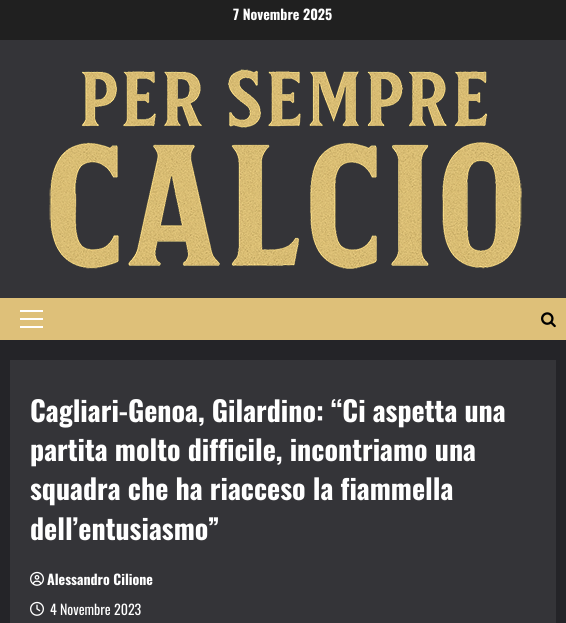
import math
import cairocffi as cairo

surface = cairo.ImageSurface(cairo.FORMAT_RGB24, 566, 623)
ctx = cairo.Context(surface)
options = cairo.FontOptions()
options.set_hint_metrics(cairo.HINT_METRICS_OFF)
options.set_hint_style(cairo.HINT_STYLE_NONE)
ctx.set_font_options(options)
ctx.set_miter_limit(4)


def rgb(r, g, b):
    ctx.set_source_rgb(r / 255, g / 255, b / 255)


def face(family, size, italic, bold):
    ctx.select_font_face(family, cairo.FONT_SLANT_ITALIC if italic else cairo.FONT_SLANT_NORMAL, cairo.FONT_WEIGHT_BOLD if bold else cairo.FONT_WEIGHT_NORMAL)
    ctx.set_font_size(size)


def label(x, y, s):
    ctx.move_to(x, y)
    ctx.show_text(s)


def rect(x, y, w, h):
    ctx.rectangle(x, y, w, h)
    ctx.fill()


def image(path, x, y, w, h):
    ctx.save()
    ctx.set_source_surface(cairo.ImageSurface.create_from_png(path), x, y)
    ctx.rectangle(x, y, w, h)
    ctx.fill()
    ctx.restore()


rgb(36, 36, 40)
ctx.paint()
rgb(32, 32, 32)
rect(0, 0, 566, 40)
face('Oswald', 14, 0, 1)
rgb(255, 255, 255)
label(233, 20, '7 Novembre 2025')
rgb(52, 52, 56)
rect(0, 40, 566, 258)
image('image0.png', 49, 69, 473, 200)
rgb(222, 192, 121)
rect(0, 298, 566, 42)
rgb(255, 255, 255)
rect(20, 318, 23, 2)
rect(20, 310, 23, 2)
rect(20, 326, 23, 2)
image('image1.png', 541, 312, 15, 16)
rgb(52, 52, 56)
rect(10, 360, 546, 263)
face('Oswald', 28, 0, 1)
rgb(255, 255, 255)
label(30, 422, 'Cagliari-Genoa, Gilardino: “Ci aspetta una')
label(30, 461, 'partita molto difficile, incontriamo una')
label(30, 500, 'squadra che ha riacceso la fiammella')
label(30, 540, 'dell’entusiasmo”')
image('image2.png', 30, 571, 14, 15)
face('Oswald', 14, 0, 1)
label(47, 585, 'Alessandro Cilione')
image('image3.png', 30, 601, 14, 15)
face('Oswald', 14, 0, 0)
label(50, 615, '4 Novembre 2023')
surface.write_to_png('render.png')
